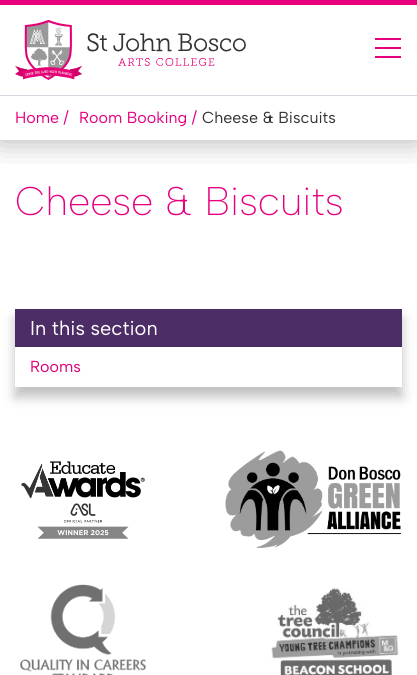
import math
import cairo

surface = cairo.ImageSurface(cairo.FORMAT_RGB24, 417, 675)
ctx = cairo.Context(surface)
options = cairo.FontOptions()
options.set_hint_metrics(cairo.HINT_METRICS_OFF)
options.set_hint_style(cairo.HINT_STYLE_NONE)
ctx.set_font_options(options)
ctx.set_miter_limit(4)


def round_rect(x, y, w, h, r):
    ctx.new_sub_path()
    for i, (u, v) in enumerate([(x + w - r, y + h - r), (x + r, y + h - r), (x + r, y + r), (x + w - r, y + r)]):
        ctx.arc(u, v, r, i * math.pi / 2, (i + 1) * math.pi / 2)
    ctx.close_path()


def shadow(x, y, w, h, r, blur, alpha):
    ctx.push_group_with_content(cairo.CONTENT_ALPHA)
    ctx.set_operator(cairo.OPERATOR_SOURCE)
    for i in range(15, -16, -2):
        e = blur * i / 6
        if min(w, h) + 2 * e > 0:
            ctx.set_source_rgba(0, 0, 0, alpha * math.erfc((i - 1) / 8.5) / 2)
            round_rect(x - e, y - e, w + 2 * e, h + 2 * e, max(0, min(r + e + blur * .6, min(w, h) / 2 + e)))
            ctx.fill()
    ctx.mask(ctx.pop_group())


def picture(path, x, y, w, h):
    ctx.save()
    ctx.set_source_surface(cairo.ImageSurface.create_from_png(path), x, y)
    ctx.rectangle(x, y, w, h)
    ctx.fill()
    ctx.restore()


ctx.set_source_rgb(1, 1, 1)
ctx.paint()
ctx.save()
ctx.rectangle(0, 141, 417, 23)
ctx.clip()
ctx.set_source_rgb(0, 0, 0)
shadow(0, 0, 417, 141, 0, 15, 0.3)
ctx.restore()
ctx.set_source_rgb(0.902, 0, 0.494)
ctx.rectangle(0, 0, 417, 5)
ctx.fill()
picture("img1.png", 15, 20, 231, 60)
ctx.rectangle(375, 38, 26, 2)
ctx.fill()
ctx.rectangle(375, 56, 26, 2)
ctx.fill()
ctx.rectangle(375, 47, 26, 2)
ctx.fill()
ctx.set_source_rgb(0.847, 0.839, 0.875)
ctx.rectangle(0, 95, 417, 1)
ctx.fill()
ctx.rectangle(0, 140, 417, 1)
ctx.fill()
ctx.select_font_face("Albert Sans")
ctx.set_font_size(16)
ctx.set_source_rgb(0.902, 0, 0.494)
ctx.move_to(15, 123)
ctx.show_text("Home /")
ctx.move_to(79, 123)
ctx.show_text("Room Booking /")
ctx.set_source_rgb(0.2, 0.2, 0.2)
ctx.move_to(202, 123)
ctx.show_text("Cheese & Biscuits")
ctx.select_font_face("Albert Sans ExtraLight")
ctx.set_font_size(40)
ctx.set_source_rgb(0.902, 0, 0.494)
ctx.move_to(15, 215)
ctx.show_text("Cheese & Biscuits")
ctx.save()
ctx.set_fill_rule(cairo.FILL_RULE_EVEN_ODD)
ctx.new_path()
ctx.move_to(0, 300)
ctx.line_to(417, 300)
ctx.line_to(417, 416)
ctx.line_to(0, 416)
ctx.close_path()
ctx.move_to(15, 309)
ctx.line_to(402, 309)
ctx.line_to(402, 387)
ctx.line_to(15, 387)
ctx.close_path()
ctx.clip()
ctx.set_source_rgb(0, 0, 0)
shadow(15, 319, 387, 78, 0, 6, 0.25)
ctx.restore()
ctx.set_source_rgb(0.302, 0.176, 0.4)
ctx.rectangle(15, 309, 387, 38)
ctx.fill()
ctx.select_font_face("Albert Sans")
ctx.set_font_size(20)
ctx.set_source_rgb(1, 1, 1)
ctx.move_to(30, 335)
ctx.show_text("In this section")
ctx.set_font_size(16)
ctx.set_source_rgb(0.859, 0, 0.471)
ctx.move_to(30, 372)
ctx.show_text("Rooms")
picture("img2.png", 21, 461, 124, 78)
picture("img3.png", 225, 450, 177, 98)
picture("img4.png", 20, 584, 126, 91)
picture("img5.png", 271, 588, 128, 87)
surface.write_to_png("page.png")
